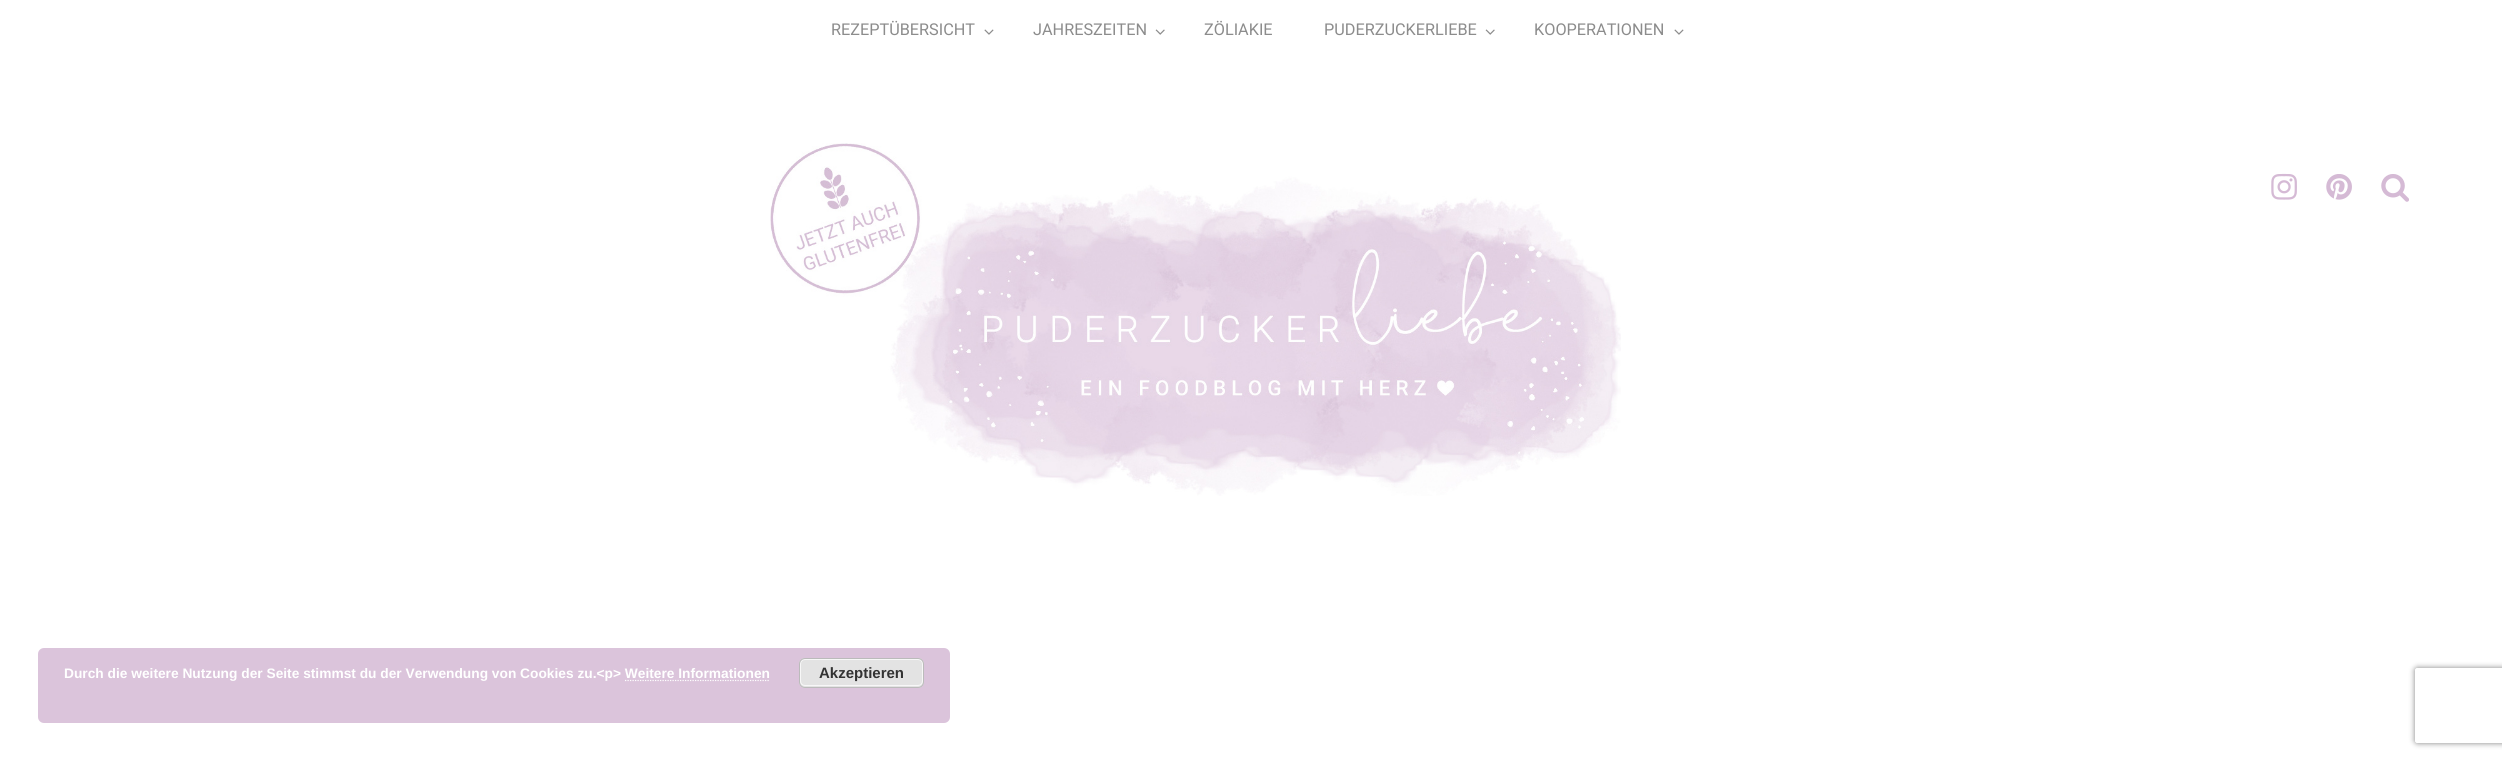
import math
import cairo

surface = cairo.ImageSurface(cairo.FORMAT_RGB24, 2502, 760)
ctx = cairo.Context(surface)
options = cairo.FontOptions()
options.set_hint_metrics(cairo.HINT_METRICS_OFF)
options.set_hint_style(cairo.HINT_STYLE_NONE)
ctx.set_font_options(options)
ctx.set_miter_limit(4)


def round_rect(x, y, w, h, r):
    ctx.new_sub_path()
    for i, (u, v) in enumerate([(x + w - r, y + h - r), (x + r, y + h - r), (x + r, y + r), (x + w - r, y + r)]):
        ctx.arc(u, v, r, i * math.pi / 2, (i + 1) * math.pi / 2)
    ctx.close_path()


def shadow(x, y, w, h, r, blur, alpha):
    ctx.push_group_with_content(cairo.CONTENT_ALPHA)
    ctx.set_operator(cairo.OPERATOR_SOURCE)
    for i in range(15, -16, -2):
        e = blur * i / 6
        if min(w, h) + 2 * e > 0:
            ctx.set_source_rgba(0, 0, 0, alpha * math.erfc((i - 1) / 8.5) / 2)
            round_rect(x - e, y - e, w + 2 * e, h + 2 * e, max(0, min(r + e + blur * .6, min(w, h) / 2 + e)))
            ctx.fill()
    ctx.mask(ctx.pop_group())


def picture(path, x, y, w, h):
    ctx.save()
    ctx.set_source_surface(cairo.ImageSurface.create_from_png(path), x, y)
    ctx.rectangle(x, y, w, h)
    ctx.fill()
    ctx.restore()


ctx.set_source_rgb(1, 1, 1)
ctx.paint()
ctx.select_font_face("Roboto")
ctx.set_font_size(16.25)
ctx.set_source_rgb(0.549, 0.549, 0.549)
ctx.move_to(831, 35)
ctx.show_text("REZEPTÜBERSICHT")
picture("img1.png", 984, 29, 10, 6)
ctx.move_to(1033, 35)
ctx.show_text("JAHRESZEITEN")
picture("img2.png", 1155, 29, 10, 6)
ctx.move_to(1204, 35)
ctx.show_text("ZÖLIAKIE")
ctx.move_to(1324, 35)
ctx.show_text("PUDERZUCKERLIEBE")
picture("img2.png", 1485, 29, 10, 6)
ctx.move_to(1534, 35)
ctx.show_text("KOOPERATIONEN")
picture("img1.png", 1674, 29, 10, 6)
picture("img3.png", 770, 143, 851, 353)
picture("img4.png", 2271, 173, 26, 27)
picture("img5.png", 2326, 174, 26, 26)
picture("img6.png", 2381, 174, 28, 28)
ctx.set_source_rgb(0.859, 0.769, 0.859)
round_rect(38, 648, 912, 75, 6)
ctx.fill()
ctx.select_font_face("Liberation Sans", cairo.FONT_SLANT_NORMAL, cairo.FONT_WEIGHT_BOLD)
ctx.set_font_size(13.75)
ctx.set_source_rgb(1, 1, 1)
ctx.move_to(64, 678)
ctx.show_text("Durch die weitere Nutzung der Seite stimmst du der Verwendung von Cookies zu.<p> Weitere Informationen")
ctx.set_source_rgb(0.89, 0.89, 0.89)
round_rect(799, 658, 125, 30, 6)
ctx.fill()
round_rect(800.5, 659.5, 122, 26, 4.5)
ctx.set_source_rgb(0.965, 0.965, 0.965)
ctx.set_line_width(1)
ctx.stroke()
round_rect(799.5, 658.5, 124, 29, 5.5)
ctx.set_source_rgb(0.733, 0.733, 0.733)
ctx.stroke()
ctx.set_font_size(15)
ctx.set_source_rgb(0.2, 0.2, 0.2)
ctx.move_to(819, 678)
ctx.show_text("Akzeptieren")
ctx.new_path()
ctx.move_to(625, 680.5)
ctx.line_to(770, 680.5)
ctx.set_source_rgb(1, 1, 1)
ctx.set_line_width(1.2)
ctx.set_dash([1.25, 1.25])
ctx.stroke()
ctx.save()
ctx.set_fill_rule(cairo.FILL_RULE_EVEN_ODD)
ctx.new_path()
ctx.move_to(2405, 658)
ctx.line_to(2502, 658)
ctx.line_to(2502, 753)
ctx.line_to(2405, 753)
ctx.close_path()
ctx.move_to(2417.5, 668)
ctx.line_to(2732.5, 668)
ctx.curve_to(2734, 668, 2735, 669, 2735, 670.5)
ctx.line_to(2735, 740.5)
ctx.curve_to(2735, 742, 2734, 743, 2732.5, 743)
ctx.line_to(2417.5, 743)
ctx.curve_to(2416, 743, 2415, 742, 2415, 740.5)
ctx.line_to(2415, 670.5)
ctx.curve_to(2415, 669, 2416, 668, 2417.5, 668)
ctx.close_path()
ctx.clip()
ctx.set_source_rgb(0.502, 0.502, 0.502)
shadow(2415, 668, 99, 75, 2.5, 3, 1)
ctx.restore()
surface.write_to_png("page.png")
